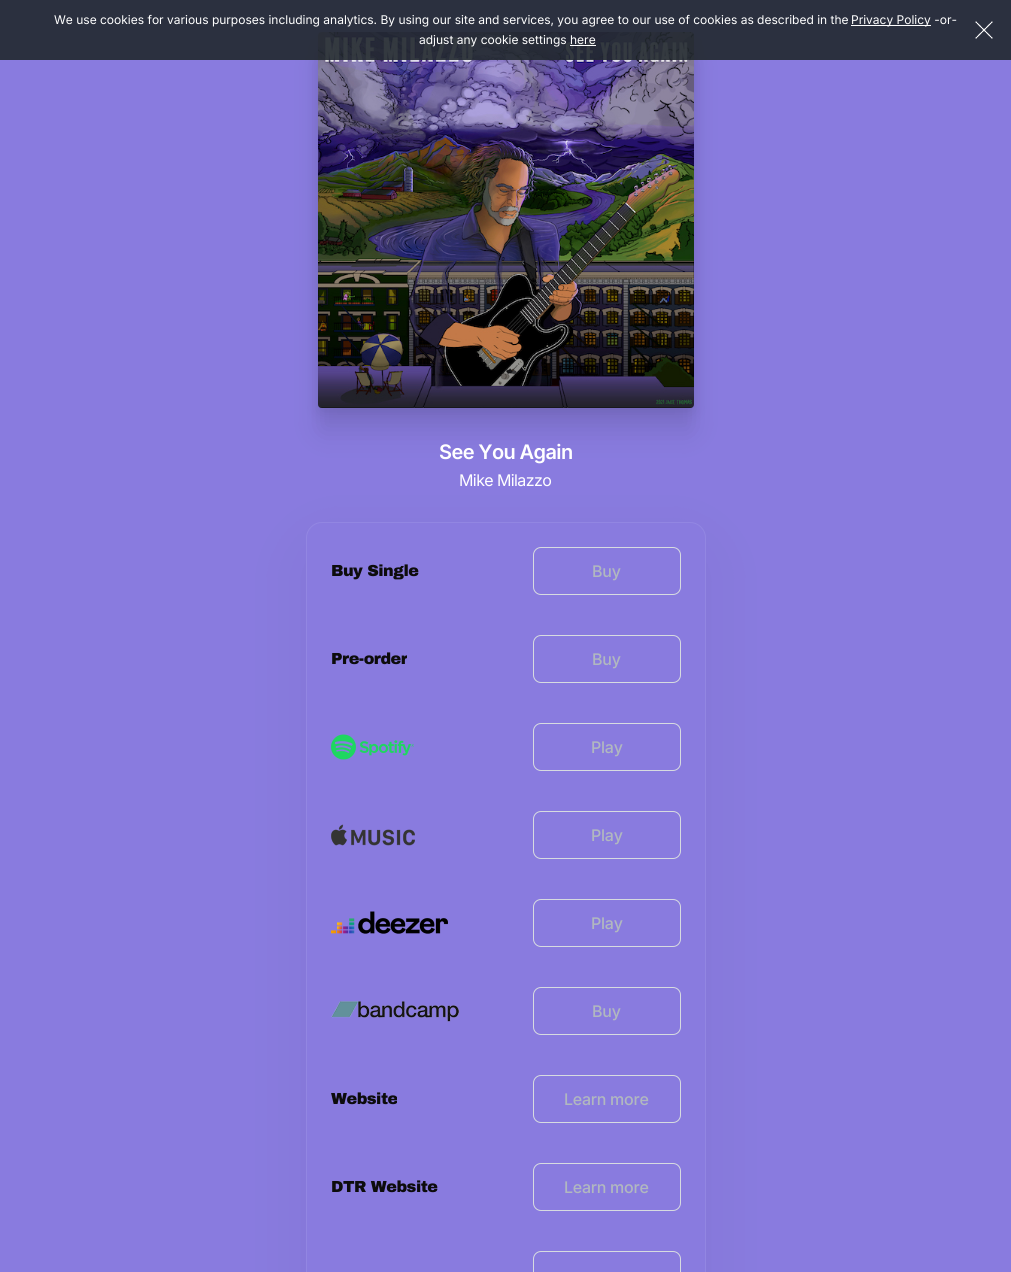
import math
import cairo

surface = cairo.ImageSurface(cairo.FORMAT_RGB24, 1011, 1272)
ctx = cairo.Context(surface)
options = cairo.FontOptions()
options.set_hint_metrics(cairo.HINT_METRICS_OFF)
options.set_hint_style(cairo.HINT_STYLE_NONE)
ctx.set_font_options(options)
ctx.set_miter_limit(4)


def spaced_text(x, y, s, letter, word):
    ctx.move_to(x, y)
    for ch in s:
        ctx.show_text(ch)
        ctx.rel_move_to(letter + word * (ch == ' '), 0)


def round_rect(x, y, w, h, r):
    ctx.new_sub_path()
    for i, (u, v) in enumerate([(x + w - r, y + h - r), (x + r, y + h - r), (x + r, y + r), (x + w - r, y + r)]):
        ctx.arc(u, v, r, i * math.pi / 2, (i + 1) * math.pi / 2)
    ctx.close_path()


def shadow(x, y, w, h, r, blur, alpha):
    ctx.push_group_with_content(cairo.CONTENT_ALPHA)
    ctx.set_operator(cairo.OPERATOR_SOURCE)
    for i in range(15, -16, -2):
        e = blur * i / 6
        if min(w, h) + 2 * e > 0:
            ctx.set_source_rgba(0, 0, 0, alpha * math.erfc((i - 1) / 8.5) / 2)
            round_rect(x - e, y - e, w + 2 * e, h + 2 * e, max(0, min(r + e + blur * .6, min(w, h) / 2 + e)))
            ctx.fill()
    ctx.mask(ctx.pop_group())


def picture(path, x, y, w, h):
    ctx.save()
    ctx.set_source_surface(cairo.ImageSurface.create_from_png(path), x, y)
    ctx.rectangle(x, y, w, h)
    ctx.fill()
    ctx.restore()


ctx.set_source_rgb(0.537, 0.482, 0.875)
ctx.paint()
ctx.set_source_rgb(0, 0, 0)
shadow(318, 38, 376, 376, 4, 7, 0.1)
shadow(318, 58, 376, 376, 4, 13, 0.09)
picture("img2.png", 318, 32, 376, 376)
ctx.set_source_rgba(0.133, 0.157, 0.18, 0.9)
ctx.rectangle(0, 0, 1011, 60)
ctx.fill()
ctx.select_font_face("Inter")
ctx.set_font_size(12)
ctx.set_source_rgb(1, 1, 1)
ctx.move_to(54, 24)
ctx.show_text("We use cookies for various purposes including analytics. By using our site and services, you agree to our use of cookies as described in the")
ctx.rectangle(851, 25, 80, 1)
ctx.fill()
ctx.move_to(851, 24)
ctx.show_text("Privacy Policy -or-")
ctx.move_to(419, 44)
ctx.show_text("adjust any cookie settings here")
ctx.rectangle(570, 45, 26, 1)
ctx.fill()
picture("img1.png", 975, 21, 18, 18)
ctx.select_font_face("Inter SemiBold")
ctx.set_font_size(20)
spaced_text(439, 459, "See You Again", -0.6, 0)
ctx.select_font_face("Inter")
ctx.set_font_size(16)
spaced_text(459, 486, "Mike Milazzo", -0.6, 0)
ctx.set_source_rgb(0, 0, 0)
shadow(306, 546, 400, 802, 16, 34, 0.05)
ctx.set_source_rgb(0.537, 0.482, 0.875)
round_rect(306.5, 522.5, 399, 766, 15.5)
ctx.fill_preserve()
ctx.set_source_rgb(0.573, 0.525, 0.886)
ctx.set_line_width(1)
ctx.stroke()
ctx.select_font_face("Archivo Black Black")
ctx.set_source_rgb(0.051, 0.047, 0.047)
spaced_text(331, 576, "Buy Single", -0.5, 0)
round_rect(533.5, 547.5, 147, 47, 7.5)
ctx.set_source_rgb(0.843, 0.859, 0.878)
ctx.stroke()
ctx.select_font_face("Inter Medium")
ctx.set_source_rgb(0.694, 0.722, 0.749)
spaced_text(592, 577, "Buy", -0.25, 0)
ctx.save()
ctx.rectangle(331, 650, 76, 18)
ctx.clip()
ctx.select_font_face("Archivo Black Black")
ctx.set_source_rgb(0.051, 0.047, 0.047)
spaced_text(331, 664, "Pre-order", -0.5, 0)
ctx.restore()
round_rect(533.5, 635.5, 147, 47, 7.5)
ctx.set_source_rgb(0.843, 0.859, 0.878)
ctx.stroke()
ctx.set_source_rgb(0.694, 0.722, 0.749)
spaced_text(592, 665, "Buy", -0.25, 0)
picture("img3.png", 331, 734, 83, 26)
round_rect(533.5, 723.5, 147, 47, 7.5)
ctx.set_source_rgb(0.843, 0.859, 0.878)
ctx.stroke()
ctx.set_source_rgb(0.694, 0.722, 0.749)
spaced_text(591, 753, "Play", -0.25, 0)
picture("img4.png", 331, 824, 84, 22)
round_rect(533.5, 811.5, 147, 47, 7.5)
ctx.set_source_rgb(0.843, 0.859, 0.878)
ctx.stroke()
ctx.set_source_rgb(0.694, 0.722, 0.749)
spaced_text(591, 841, "Play", -0.25, 0)
picture("img5.png", 331, 911, 117, 23)
round_rect(533.5, 899.5, 147, 47, 7.5)
ctx.set_source_rgb(0.843, 0.859, 0.878)
ctx.stroke()
ctx.set_source_rgb(0.694, 0.722, 0.749)
spaced_text(591, 929, "Play", -0.25, 0)
picture("img6.png", 331, 1001, 128, 21)
round_rect(533.5, 987.5, 147, 47, 7.5)
ctx.set_source_rgb(0.843, 0.859, 0.878)
ctx.stroke()
ctx.set_source_rgb(0.694, 0.722, 0.749)
spaced_text(592, 1017, "Buy", -0.25, 0)
ctx.save()
ctx.rectangle(331, 1090, 66, 18)
ctx.clip()
ctx.select_font_face("Archivo Black Black")
ctx.set_source_rgb(0.051, 0.047, 0.047)
spaced_text(331, 1104, "Website", -0.5, 0)
ctx.restore()
round_rect(533.5, 1075.5, 147, 47, 7.5)
ctx.set_source_rgb(0.843, 0.859, 0.878)
ctx.stroke()
ctx.set_source_rgb(0.694, 0.722, 0.749)
spaced_text(564, 1105, "Learn more", -0.25, 0)
ctx.select_font_face("Archivo Black Black")
ctx.set_source_rgb(0.051, 0.047, 0.047)
spaced_text(331, 1192, "DTR Website", -0.5, 0)
round_rect(533.5, 1163.5, 147, 47, 7.5)
ctx.set_source_rgb(0.843, 0.859, 0.878)
ctx.stroke()
ctx.select_font_face("Inter Medium")
ctx.set_source_rgb(0.694, 0.722, 0.749)
spaced_text(564, 1193, "Learn more", -0.25, 0)
round_rect(533.5, 1251.5, 147, 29, 7.5)
ctx.set_source_rgb(0.843, 0.859, 0.878)
ctx.stroke()
surface.write_to_png("page.png")
